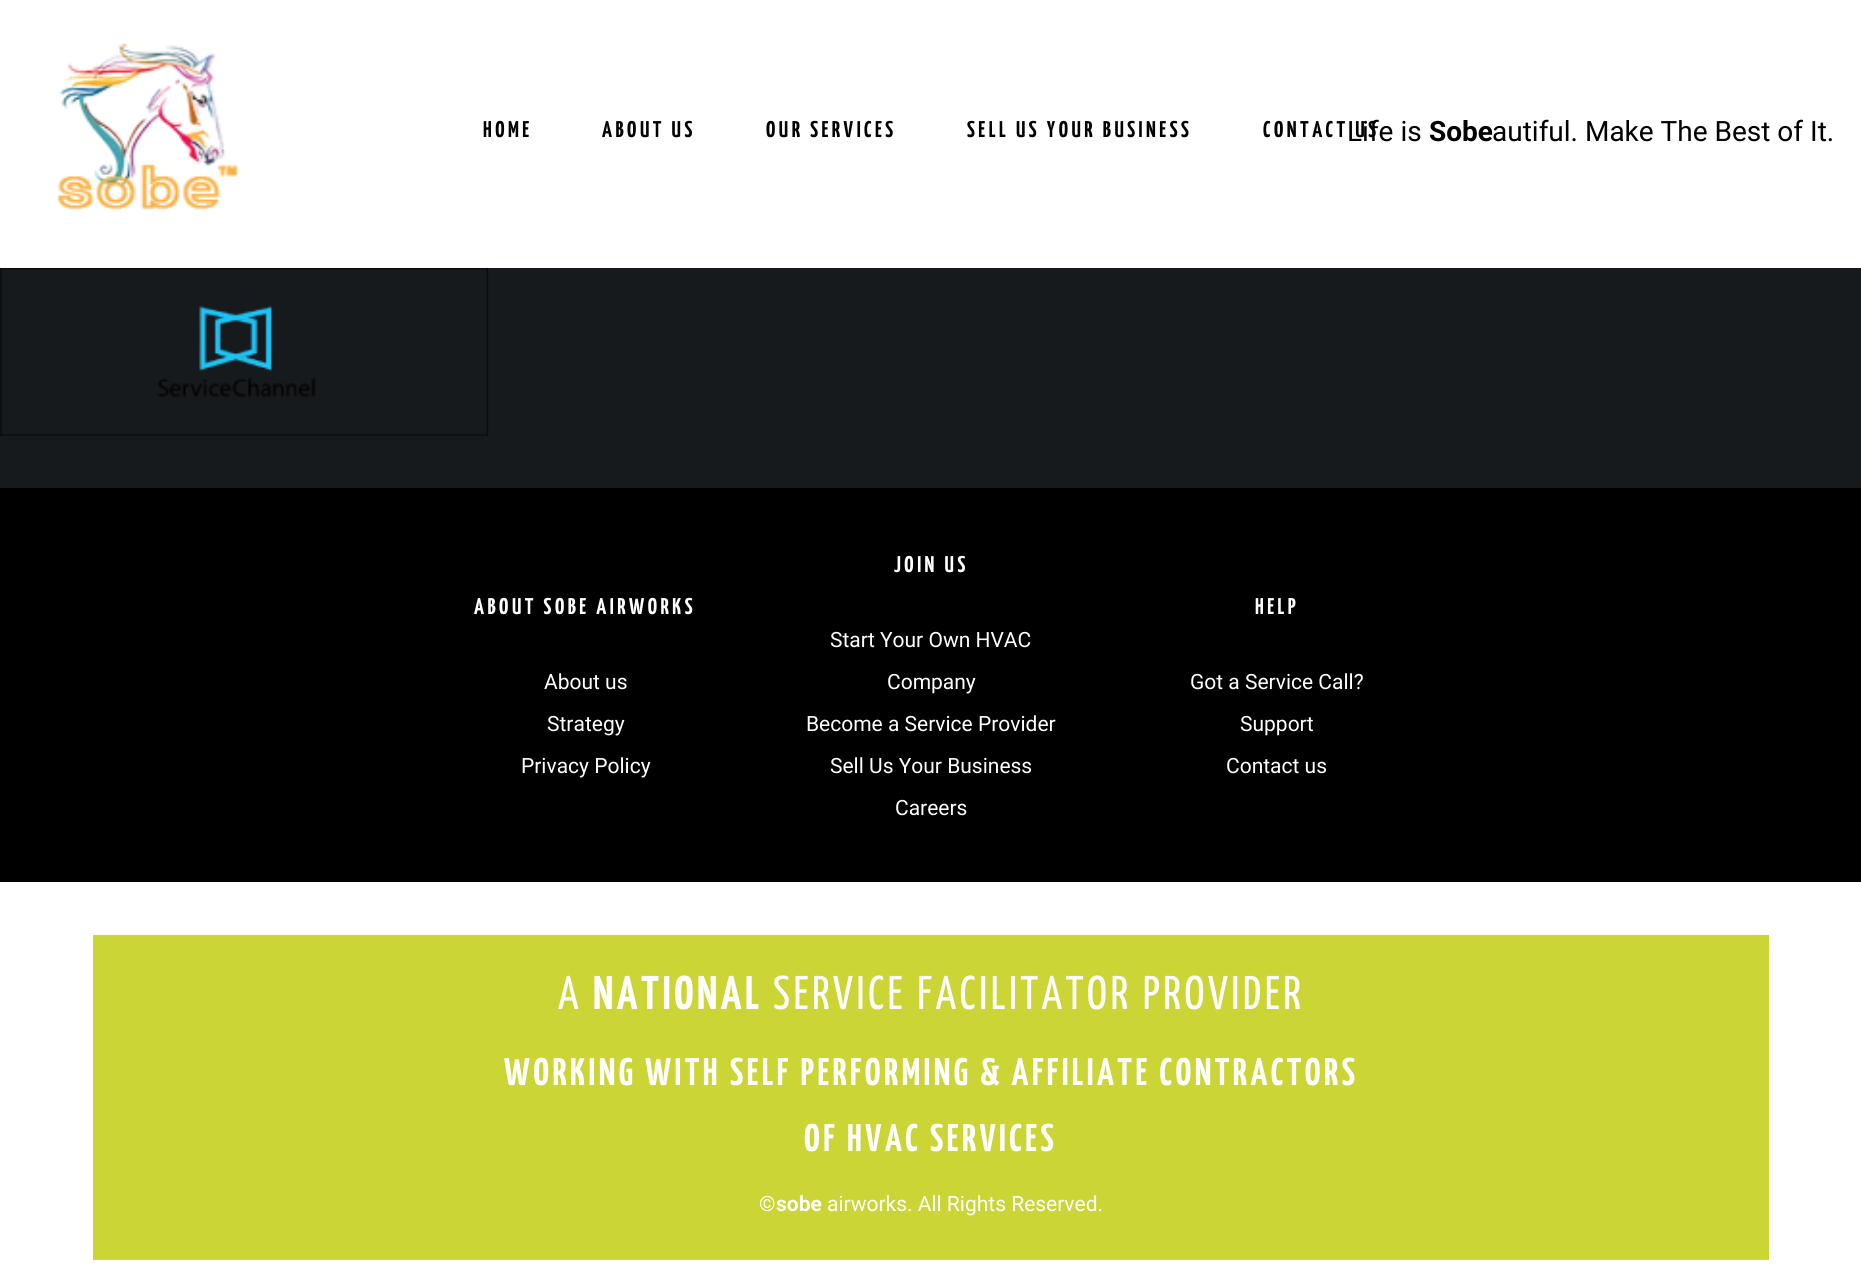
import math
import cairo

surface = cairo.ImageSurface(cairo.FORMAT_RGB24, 1861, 1267)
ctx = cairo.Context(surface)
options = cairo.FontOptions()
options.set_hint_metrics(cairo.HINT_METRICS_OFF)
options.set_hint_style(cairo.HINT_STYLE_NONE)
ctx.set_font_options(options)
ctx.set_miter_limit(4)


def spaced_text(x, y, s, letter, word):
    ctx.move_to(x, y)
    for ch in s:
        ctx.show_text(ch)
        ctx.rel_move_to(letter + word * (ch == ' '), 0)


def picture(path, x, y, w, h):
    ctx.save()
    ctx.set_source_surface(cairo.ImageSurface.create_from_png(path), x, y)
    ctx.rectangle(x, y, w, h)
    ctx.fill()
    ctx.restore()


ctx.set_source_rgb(0.09, 0.102, 0.114)
ctx.paint()
ctx.set_source_rgb(1, 1, 1)
ctx.rectangle(0, 0, 1861, 268)
ctx.fill()
picture("img1.png", 57, 43, 183, 167)
ctx.select_font_face("Yanone Kaffeesatz", cairo.FONT_SLANT_NORMAL, cairo.FONT_WEIGHT_BOLD)
ctx.set_font_size(22.75)
ctx.set_source_rgb(0, 0, 0)
spaced_text(483, 137, "HOME", 3.5, 0)
spaced_text(602, 137, "ABOUT US", 3.5, 0)
spaced_text(766, 137, "OUR SERVICES", 3.5, 0)
spaced_text(967, 137, "SELL US YOUR BUSINESS", 3.5, 0)
spaced_text(1263, 137, "CONTACT US", 3.5, 0)
ctx.select_font_face("Roboto")
ctx.set_font_size(28)
ctx.move_to(1347, 141)
ctx.show_text("Life is")
ctx.select_font_face("Roboto", cairo.FONT_SLANT_NORMAL, cairo.FONT_WEIGHT_BOLD)
ctx.move_to(1429, 141)
ctx.show_text("Sobe")
ctx.select_font_face("Roboto")
ctx.move_to(1492, 141)
ctx.show_text("autiful. Make The Best of It.")
picture("img2.png", 0, 268, 489, 168)
ctx.rectangle(0, 488, 1861, 394)
ctx.fill()
ctx.select_font_face("Yanone Kaffeesatz", cairo.FONT_SLANT_NORMAL, cairo.FONT_WEIGHT_BOLD)
ctx.set_font_size(22.75)
ctx.set_source_rgb(1, 1, 1)
spaced_text(474, 614, "ABOUT SOBE AIRWORKS", 3.5, 0)
ctx.select_font_face("Roboto")
ctx.set_font_size(21)
ctx.move_to(544, 689)
ctx.show_text("About us")
ctx.move_to(547, 731)
ctx.show_text("Strategy")
ctx.move_to(521, 773)
ctx.show_text("Privacy Policy")
ctx.select_font_face("Yanone Kaffeesatz", cairo.FONT_SLANT_NORMAL, cairo.FONT_WEIGHT_BOLD)
ctx.set_font_size(22.75)
spaced_text(894, 572, "JOIN US", 3.5, 0)
ctx.select_font_face("Roboto")
ctx.set_font_size(21)
ctx.move_to(830, 647)
ctx.show_text("Start Your Own HVAC")
ctx.move_to(887, 689)
ctx.show_text("Company")
ctx.move_to(806, 731)
ctx.show_text("Become a Service Provider")
ctx.move_to(830, 773)
ctx.show_text("Sell Us Your Business")
ctx.move_to(895, 815)
ctx.show_text("Careers")
ctx.select_font_face("Yanone Kaffeesatz", cairo.FONT_SLANT_NORMAL, cairo.FONT_WEIGHT_BOLD)
ctx.set_font_size(22.75)
spaced_text(1255, 614, "HELP", 3.5, 0)
ctx.select_font_face("Roboto")
ctx.set_font_size(21)
ctx.move_to(1190, 689)
ctx.show_text("Got a Service Call?")
ctx.move_to(1240, 731)
ctx.show_text("Support")
ctx.move_to(1226, 773)
ctx.show_text("Contact us")
ctx.rectangle(0, 882, 1861, 385)
ctx.fill()
ctx.set_source_rgb(0.796, 0.835, 0.208)
ctx.rectangle(93, 935, 1676, 325)
ctx.fill()
ctx.select_font_face("Yanone Kaffeesatz")
ctx.set_font_size(47.25)
ctx.set_source_rgb(1, 1, 1)
spaced_text(558, 1009, "A", 3.5, 0)
ctx.select_font_face("Yanone Kaffeesatz", cairo.FONT_SLANT_NORMAL, cairo.FONT_WEIGHT_BOLD)
spaced_text(593, 1009, "NATIONAL", 3.5, 0)
ctx.select_font_face("Yanone Kaffeesatz")
spaced_text(773, 1009, "SERVICE FACILITATOR PROVIDER", 3.5, 0)
ctx.select_font_face("Yanone Kaffeesatz", cairo.FONT_SLANT_NORMAL, cairo.FONT_WEIGHT_BOLD)
ctx.set_font_size(38.5)
spaced_text(504, 1085, "WORKING WITH SELF PERFORMING & AFFILIATE CONTRACTORS", 3.5, 0)
spaced_text(804, 1151, "OF HVAC SERVICES", 3.5, 0)
ctx.select_font_face("Roboto")
ctx.set_font_size(21)
ctx.move_to(759, 1211)
ctx.show_text("©")
ctx.select_font_face("Roboto", cairo.FONT_SLANT_NORMAL, cairo.FONT_WEIGHT_BOLD)
ctx.move_to(776, 1211)
ctx.show_text("sobe")
ctx.select_font_face("Roboto")
ctx.move_to(827, 1211)
ctx.show_text("airworks. All Rights Reserved.")
surface.write_to_png("page.png")
